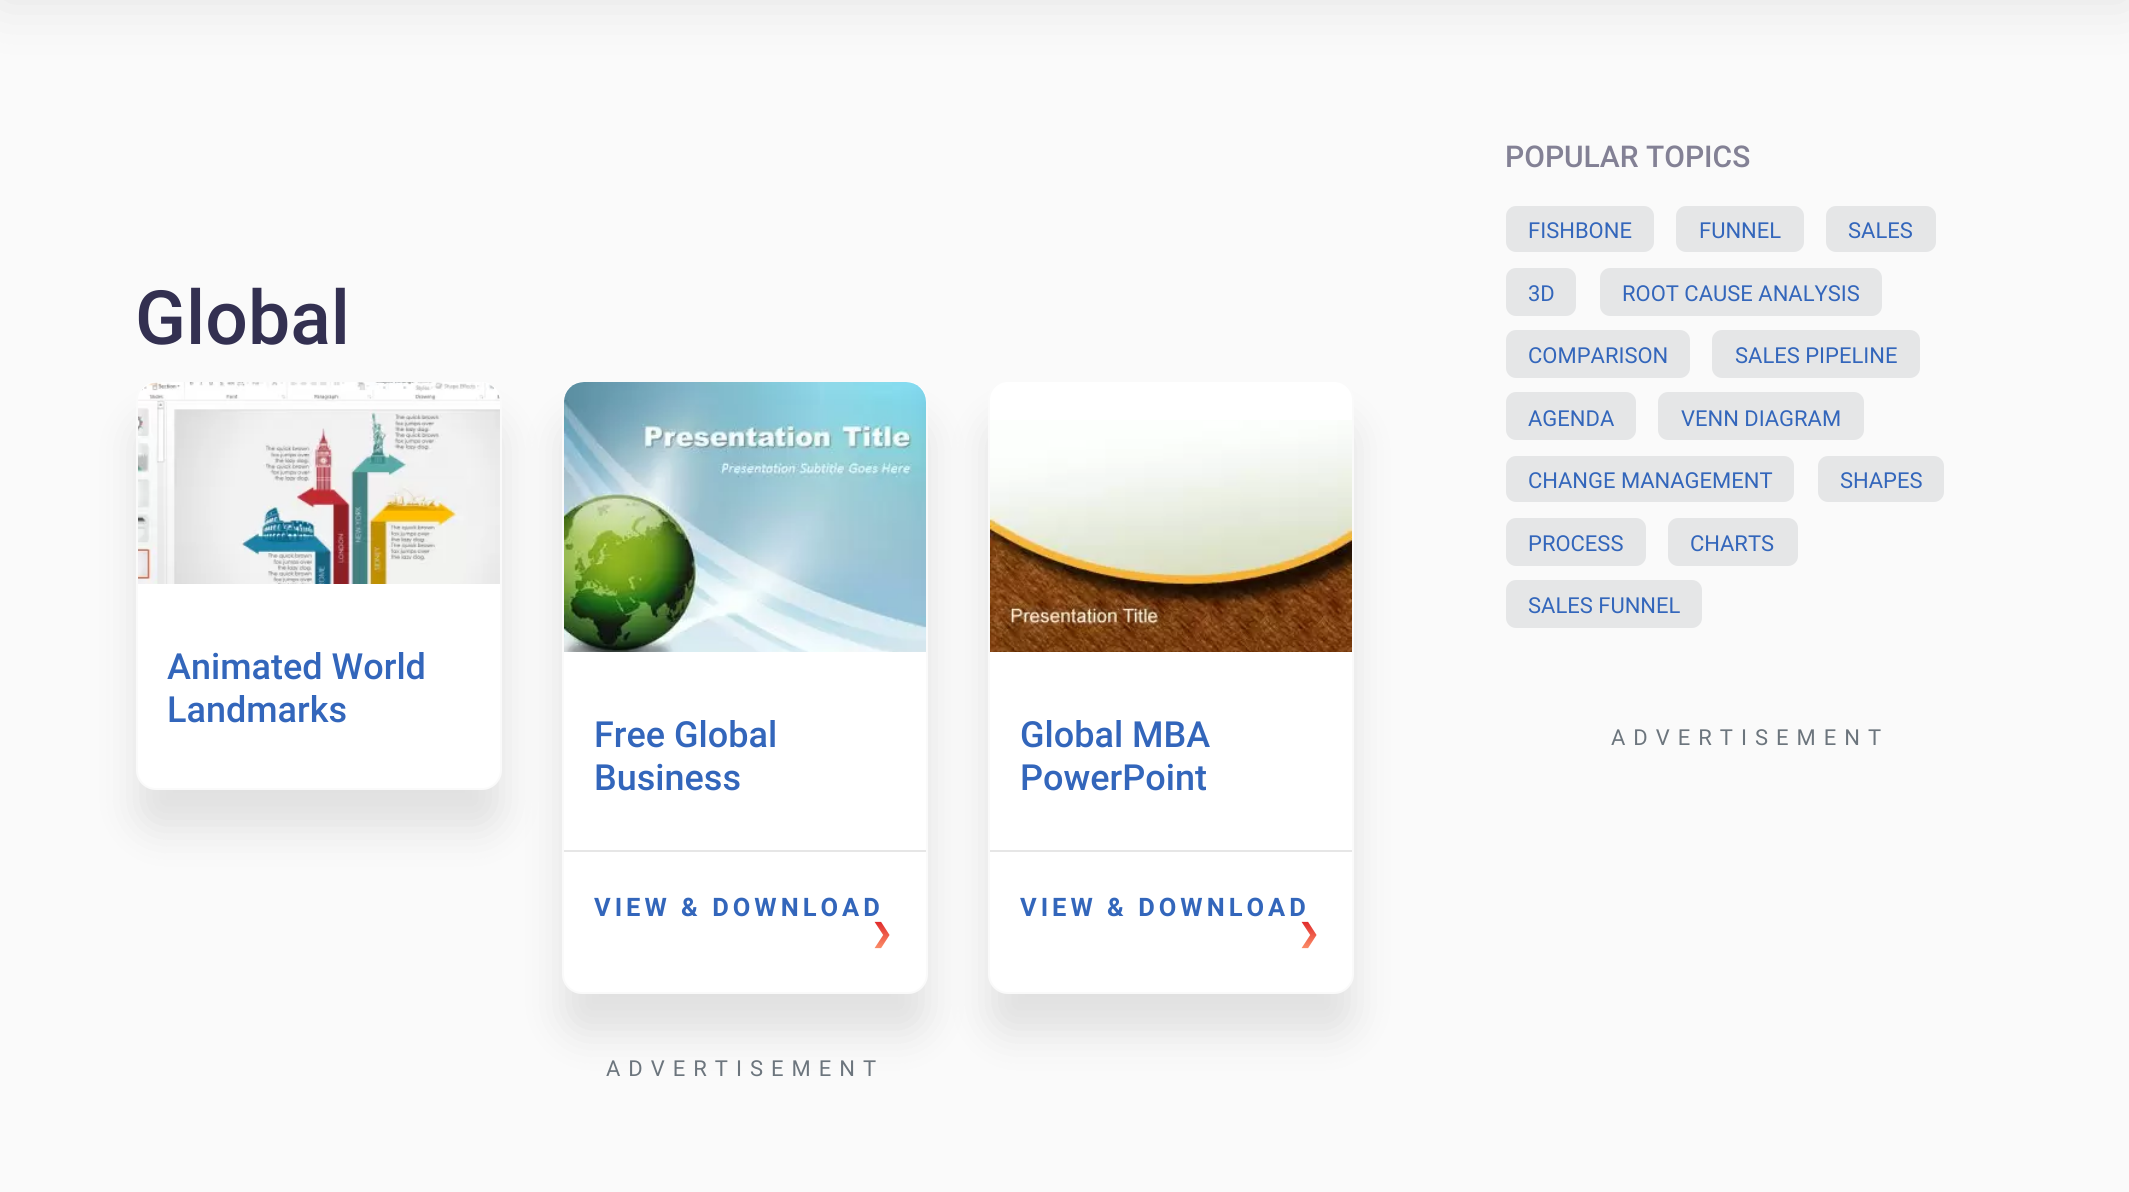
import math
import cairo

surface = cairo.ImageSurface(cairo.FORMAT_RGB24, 2129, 1192)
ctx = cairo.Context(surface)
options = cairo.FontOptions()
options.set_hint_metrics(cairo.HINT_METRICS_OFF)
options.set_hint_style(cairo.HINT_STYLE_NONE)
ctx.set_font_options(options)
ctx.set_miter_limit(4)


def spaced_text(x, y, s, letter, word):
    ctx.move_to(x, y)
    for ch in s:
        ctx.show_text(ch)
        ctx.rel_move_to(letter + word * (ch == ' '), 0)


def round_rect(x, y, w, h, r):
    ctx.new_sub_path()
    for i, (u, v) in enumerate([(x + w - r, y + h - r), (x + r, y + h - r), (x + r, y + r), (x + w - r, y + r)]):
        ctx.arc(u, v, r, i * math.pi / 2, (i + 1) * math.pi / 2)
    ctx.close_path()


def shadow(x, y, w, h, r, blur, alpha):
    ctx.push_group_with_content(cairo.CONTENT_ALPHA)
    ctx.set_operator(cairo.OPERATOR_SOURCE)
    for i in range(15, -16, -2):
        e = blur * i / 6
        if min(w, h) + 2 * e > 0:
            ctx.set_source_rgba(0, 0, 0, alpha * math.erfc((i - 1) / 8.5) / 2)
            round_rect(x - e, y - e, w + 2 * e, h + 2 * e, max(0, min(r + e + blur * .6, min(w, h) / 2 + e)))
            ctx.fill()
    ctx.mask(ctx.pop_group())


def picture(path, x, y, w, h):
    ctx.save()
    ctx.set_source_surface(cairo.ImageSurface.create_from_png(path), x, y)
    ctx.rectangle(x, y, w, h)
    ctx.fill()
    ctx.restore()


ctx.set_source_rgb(0.98, 0.98, 0.98)
ctx.paint()
ctx.set_source_rgb(0, 0, 0)
shadow(0, -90, 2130, 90, 0, 30, 0.1)
ctx.select_font_face("Roboto Medium")
ctx.set_font_size(75)
ctx.set_source_rgb(0.2, 0.188, 0.318)
ctx.move_to(135, 344)
ctx.show_text("Global")
ctx.set_source_rgb(0, 0, 0)
shadow(136, 420, 366, 410, 20, 20, 0.1)
ctx.set_source_rgb(1, 1, 1)
round_rect(137, 381, 364, 408, 19)
ctx.fill_preserve()
ctx.set_source_rgb(0.98, 0.98, 0.98)
ctx.stroke()
picture("img1.png", 138, 382, 362, 202)
ctx.set_font_size(36)
ctx.set_source_rgb(0.2, 0.4, 0.733)
ctx.move_to(167, 679)
ctx.show_text("Animated World")
ctx.move_to(167, 722)
ctx.show_text("Landmarks")
ctx.set_source_rgb(0, 0, 0)
shadow(562, 420, 366, 614, 20, 20, 0.1)
ctx.set_source_rgb(1, 1, 1)
round_rect(563, 381, 364, 612, 19)
ctx.fill_preserve()
ctx.set_source_rgb(0.98, 0.98, 0.98)
ctx.stroke()
picture("img2.png", 564, 382, 362, 270)
ctx.set_source_rgb(0.2, 0.4, 0.733)
ctx.move_to(594, 747)
ctx.show_text("Free Global")
ctx.move_to(594, 790)
ctx.show_text("Business")
ctx.set_source_rgb(0.902, 0.902, 0.902)
ctx.rectangle(564, 850, 362, 2)
ctx.fill()
ctx.select_font_face("Roboto", cairo.FONT_SLANT_NORMAL, cairo.FONT_WEIGHT_BOLD)
ctx.set_font_size(25.5)
ctx.set_source_rgb(0.2, 0.4, 0.733)
spaced_text(594, 916, "VIEW & DOWNLOAD", 4, 0)
ctx.select_font_face("DejaVu Sans", cairo.FONT_SLANT_NORMAL, cairo.FONT_WEIGHT_BOLD)
gradient = cairo.LinearGradient(884, 922, 884, 947)
gradient.add_color_stop_rgba(0, 0.882, 0.173, 0.173, 1)
gradient.add_color_stop_rgba(1, 0.98, 0.533, 0.396, 1)
ctx.set_source(gradient)
spaced_text(871, 942, "❯", 4, 0)
ctx.set_source_rgb(0, 0, 0)
shadow(988, 420, 366, 614, 20, 20, 0.1)
ctx.set_source_rgb(1, 1, 1)
round_rect(989, 381, 364, 612, 19)
ctx.fill_preserve()
ctx.set_source_rgb(0.98, 0.98, 0.98)
ctx.stroke()
picture("img3.png", 990, 420, 362, 232)
ctx.select_font_face("Roboto Medium")
ctx.set_font_size(36)
ctx.set_source_rgb(0.2, 0.4, 0.733)
ctx.move_to(1020, 747)
ctx.show_text("Global MBA")
ctx.move_to(1020, 790)
ctx.show_text("PowerPoint")
ctx.set_source_rgb(0.902, 0.902, 0.902)
ctx.rectangle(990, 850, 362, 2)
ctx.fill()
ctx.select_font_face("Roboto", cairo.FONT_SLANT_NORMAL, cairo.FONT_WEIGHT_BOLD)
ctx.set_font_size(25.5)
ctx.set_source_rgb(0.2, 0.4, 0.733)
spaced_text(1020, 916, "VIEW & DOWNLOAD", 4, 0)
ctx.select_font_face("DejaVu Sans", cairo.FONT_SLANT_NORMAL, cairo.FONT_WEIGHT_BOLD)
gradient = cairo.LinearGradient(1310, 922, 1310, 947)
gradient.add_color_stop_rgba(0, 0.882, 0.173, 0.173, 1)
gradient.add_color_stop_rgba(1, 0.98, 0.533, 0.396, 1)
ctx.set_source(gradient)
spaced_text(1298, 942, "❯", 4, 0)
ctx.select_font_face("Roboto")
ctx.set_font_size(22)
ctx.set_source_rgb(0.424, 0.459, 0.49)
spaced_text(606, 1076, "ADVERTISEMENT", 8, 0)
ctx.select_font_face("Roboto Medium")
ctx.set_font_size(30)
ctx.set_source_rgb(0.514, 0.506, 0.584)
ctx.move_to(1505, 167)
ctx.show_text("POPULAR TOPICS")
ctx.set_source_rgb(0.898, 0.902, 0.906)
round_rect(1506, 206, 148, 46, 10)
ctx.fill()
ctx.select_font_face("Roboto")
ctx.set_font_size(22)
ctx.set_source_rgb(0.2, 0.4, 0.733)
ctx.move_to(1528, 238)
ctx.show_text("FISHBONE")
ctx.set_source_rgb(0.898, 0.902, 0.906)
round_rect(1676, 206, 128, 46, 10)
ctx.fill()
ctx.set_source_rgb(0.2, 0.4, 0.733)
ctx.move_to(1699, 238)
ctx.show_text("FUNNEL")
ctx.set_source_rgb(0.898, 0.902, 0.906)
round_rect(1826, 206, 110, 46, 10)
ctx.fill()
ctx.set_source_rgb(0.2, 0.4, 0.733)
ctx.move_to(1848, 238)
ctx.show_text("SALES")
ctx.set_source_rgb(0.898, 0.902, 0.906)
round_rect(1506, 268, 70, 48, 10)
ctx.fill()
ctx.set_source_rgb(0.2, 0.4, 0.733)
ctx.move_to(1528, 301)
ctx.show_text("3D")
ctx.set_source_rgb(0.898, 0.902, 0.906)
round_rect(1600, 268, 282, 48, 10)
ctx.fill()
ctx.set_source_rgb(0.2, 0.4, 0.733)
ctx.move_to(1622, 301)
ctx.show_text("ROOT CAUSE ANALYSIS")
ctx.set_source_rgb(0.898, 0.902, 0.906)
round_rect(1506, 330, 184, 48, 10)
ctx.fill()
ctx.set_source_rgb(0.2, 0.4, 0.733)
ctx.move_to(1528, 363)
ctx.show_text("COMPARISON")
ctx.set_source_rgb(0.898, 0.902, 0.906)
round_rect(1712, 330, 208, 48, 10)
ctx.fill()
ctx.set_source_rgb(0.2, 0.4, 0.733)
ctx.move_to(1735, 363)
ctx.show_text("SALES PIPELINE")
ctx.set_source_rgb(0.898, 0.902, 0.906)
round_rect(1506, 392, 130, 48, 10)
ctx.fill()
ctx.set_source_rgb(0.2, 0.4, 0.733)
ctx.move_to(1528, 426)
ctx.show_text("AGENDA")
ctx.set_source_rgb(0.898, 0.902, 0.906)
round_rect(1658, 392, 206, 48, 10)
ctx.fill()
ctx.set_source_rgb(0.2, 0.4, 0.733)
ctx.move_to(1681, 426)
ctx.show_text("VENN DIAGRAM")
ctx.set_source_rgb(0.898, 0.902, 0.906)
round_rect(1506, 456, 288, 46, 10)
ctx.fill()
ctx.set_source_rgb(0.2, 0.4, 0.733)
ctx.move_to(1528, 488)
ctx.show_text("CHANGE MANAGEMENT")
ctx.set_source_rgb(0.898, 0.902, 0.906)
round_rect(1818, 456, 126, 46, 10)
ctx.fill()
ctx.set_source_rgb(0.2, 0.4, 0.733)
ctx.move_to(1840, 488)
ctx.show_text("SHAPES")
ctx.set_source_rgb(0.898, 0.902, 0.906)
round_rect(1506, 518, 140, 48, 10)
ctx.fill()
ctx.set_source_rgb(0.2, 0.4, 0.733)
ctx.move_to(1528, 551)
ctx.show_text("PROCESS")
ctx.set_source_rgb(0.898, 0.902, 0.906)
round_rect(1668, 518, 130, 48, 10)
ctx.fill()
ctx.set_source_rgb(0.2, 0.4, 0.733)
ctx.move_to(1690, 551)
ctx.show_text("CHARTS")
ctx.set_source_rgb(0.898, 0.902, 0.906)
round_rect(1506, 580, 196, 48, 10)
ctx.fill()
ctx.set_source_rgb(0.2, 0.4, 0.733)
ctx.move_to(1528, 613)
ctx.show_text("SALES FUNNEL")
ctx.set_source_rgb(0.424, 0.459, 0.49)
spaced_text(1611, 745, "ADVERTISEMENT", 8, 0)
surface.write_to_png("page.png")
